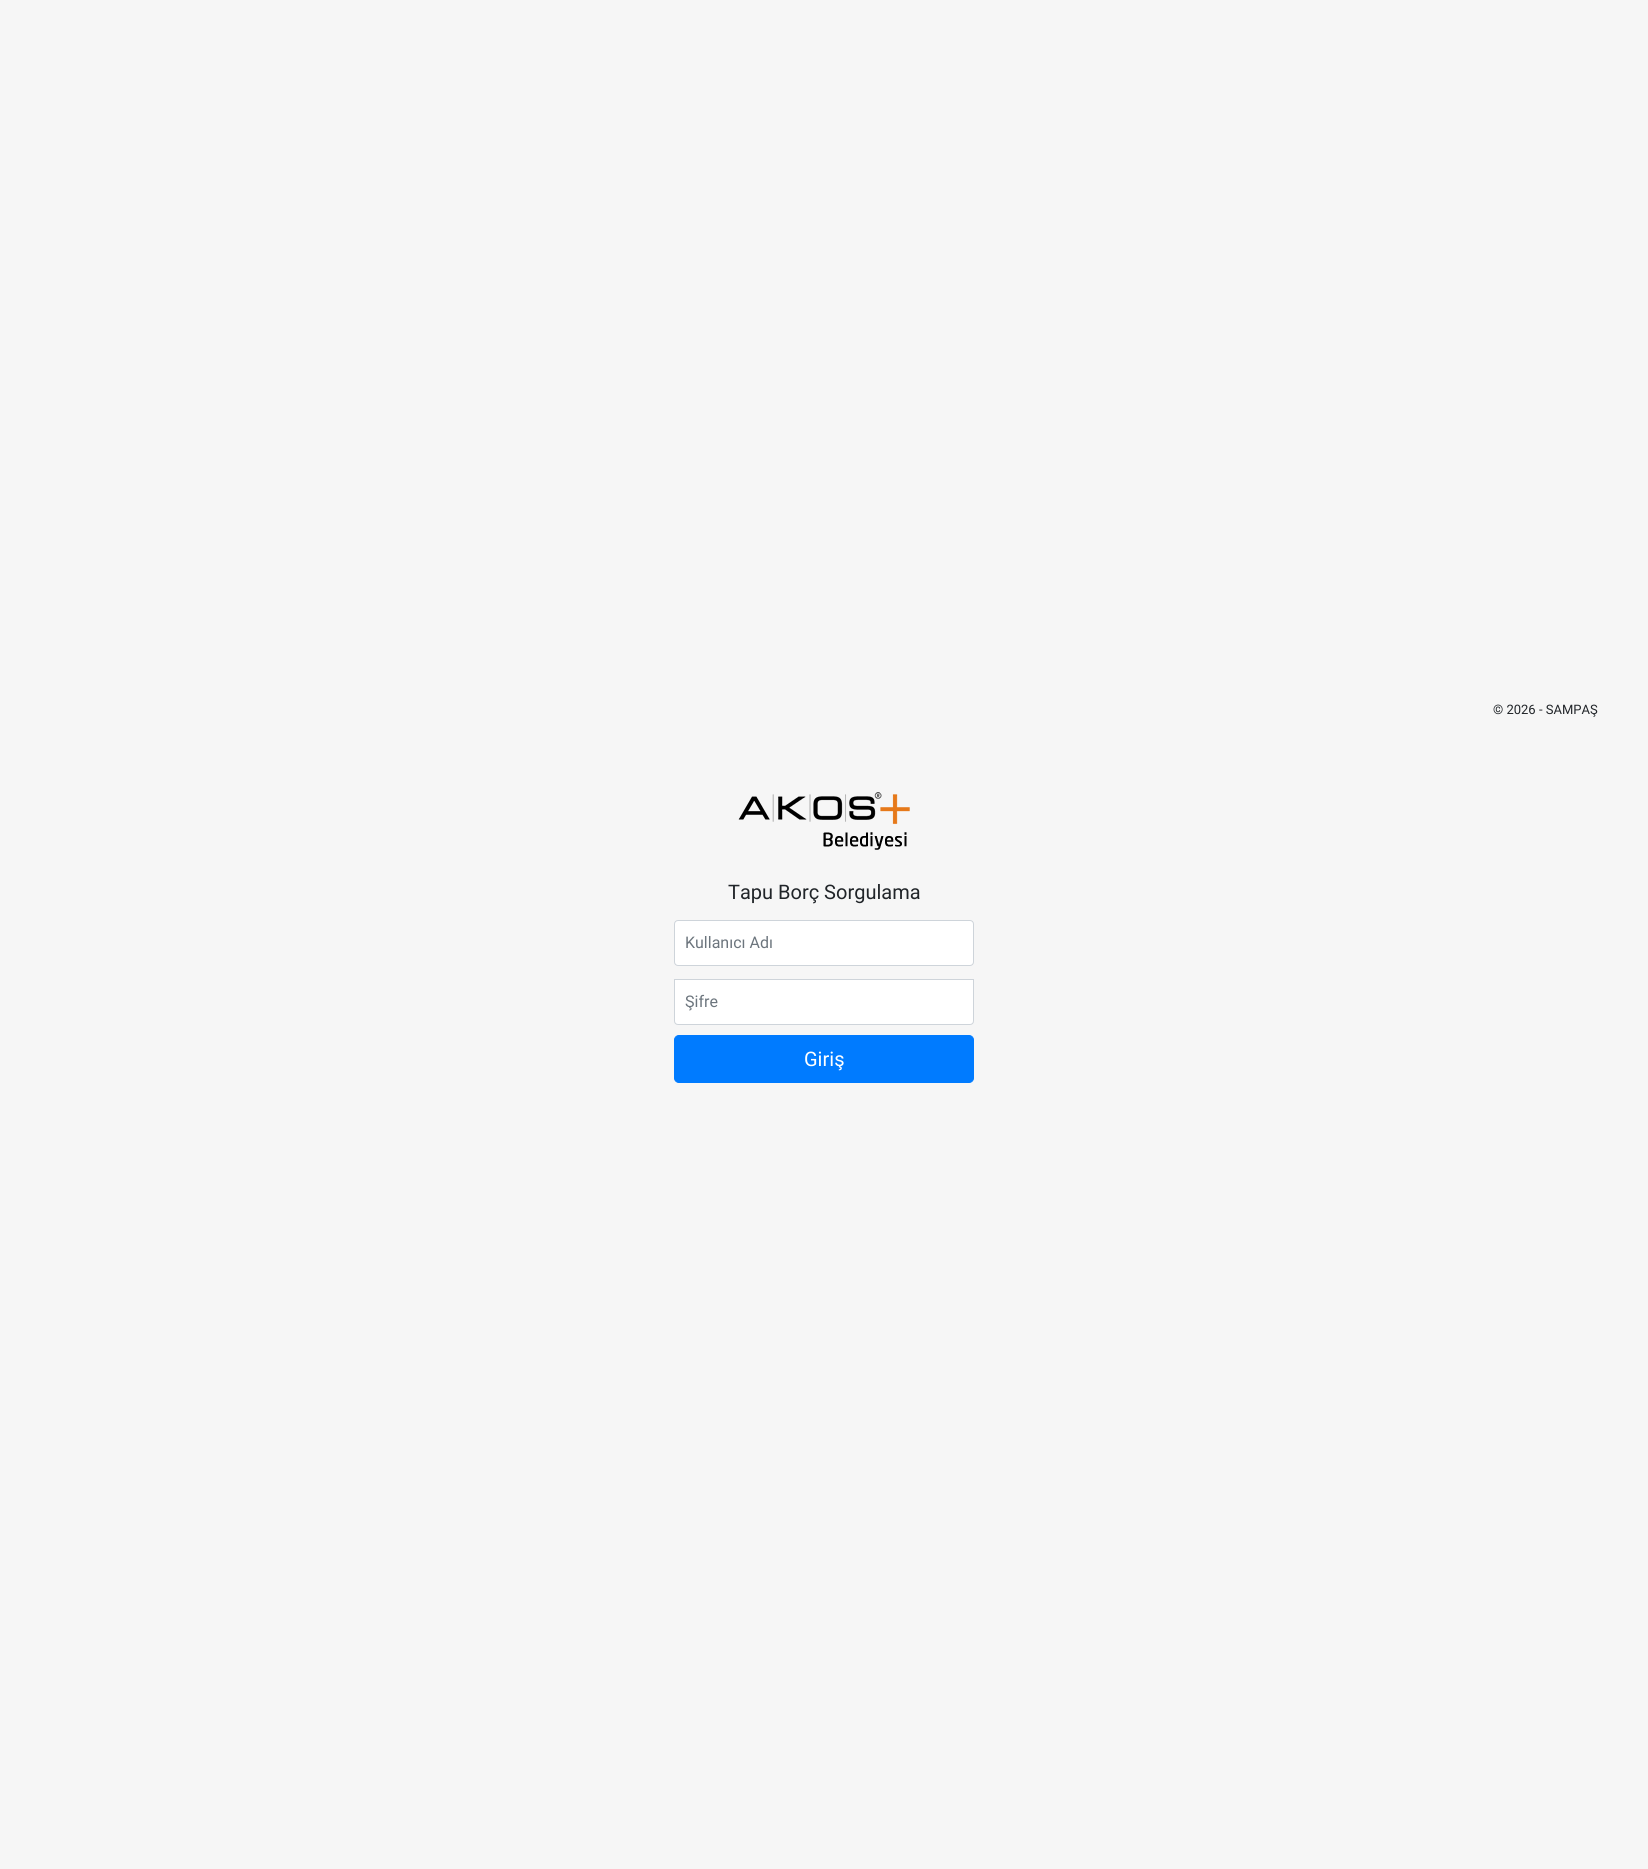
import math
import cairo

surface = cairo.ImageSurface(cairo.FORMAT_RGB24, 1648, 1869)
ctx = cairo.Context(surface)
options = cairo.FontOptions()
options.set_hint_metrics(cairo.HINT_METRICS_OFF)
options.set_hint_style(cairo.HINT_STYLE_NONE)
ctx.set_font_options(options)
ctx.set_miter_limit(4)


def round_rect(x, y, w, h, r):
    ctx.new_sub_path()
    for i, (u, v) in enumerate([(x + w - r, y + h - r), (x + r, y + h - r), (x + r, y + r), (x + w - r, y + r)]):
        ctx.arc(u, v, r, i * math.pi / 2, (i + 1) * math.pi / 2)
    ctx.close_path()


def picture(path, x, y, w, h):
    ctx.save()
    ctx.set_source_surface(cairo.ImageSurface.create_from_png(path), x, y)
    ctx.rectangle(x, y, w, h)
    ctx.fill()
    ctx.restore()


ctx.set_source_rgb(0.961, 0.961, 0.961)
ctx.paint()
ctx.select_font_face("Roboto")
ctx.set_font_size(13)
ctx.set_source_rgb(0.129, 0.145, 0.161)
ctx.move_to(1493, 714)
ctx.show_text("© 2026 - SAMPAŞ")
picture("img1.png", 738, 792, 172, 58)
ctx.set_font_size(20)
ctx.move_to(728, 899)
ctx.show_text("Tapu Borç Sorgulama")
ctx.set_source_rgb(1, 1, 1)
round_rect(674.5, 920.5, 299, 45, 3.5)
ctx.fill_preserve()
ctx.set_source_rgb(0.808, 0.831, 0.855)
ctx.set_line_width(1)
ctx.stroke()
ctx.set_font_size(16)
ctx.set_source_rgb(0.424, 0.459, 0.49)
ctx.move_to(685, 948)
ctx.show_text("Kullanıcı Adı")
ctx.set_source_rgb(1, 1, 1)
ctx.new_path()
ctx.move_to(674.5, 979.5)
ctx.line_to(973.5, 979.5)
ctx.line_to(973.5, 1021)
ctx.curve_to(973.5, 1023, 972, 1024.5, 970, 1024.5)
ctx.line_to(678, 1024.5)
ctx.curve_to(676, 1024.5, 674.5, 1023, 674.5, 1021)
ctx.close_path()
ctx.fill_preserve()
ctx.set_source_rgb(0.808, 0.831, 0.855)
ctx.stroke()
ctx.set_source_rgb(0.424, 0.459, 0.49)
ctx.move_to(685, 1007)
ctx.show_text("Şifre")
ctx.set_source_rgb(0, 0.482, 1)
round_rect(674.5, 1035.5, 299, 47, 4.5)
ctx.fill_preserve()
ctx.stroke()
ctx.set_font_size(20)
ctx.set_source_rgb(1, 1, 1)
ctx.move_to(804, 1066)
ctx.show_text("Giriş")
surface.write_to_png("page.png")
